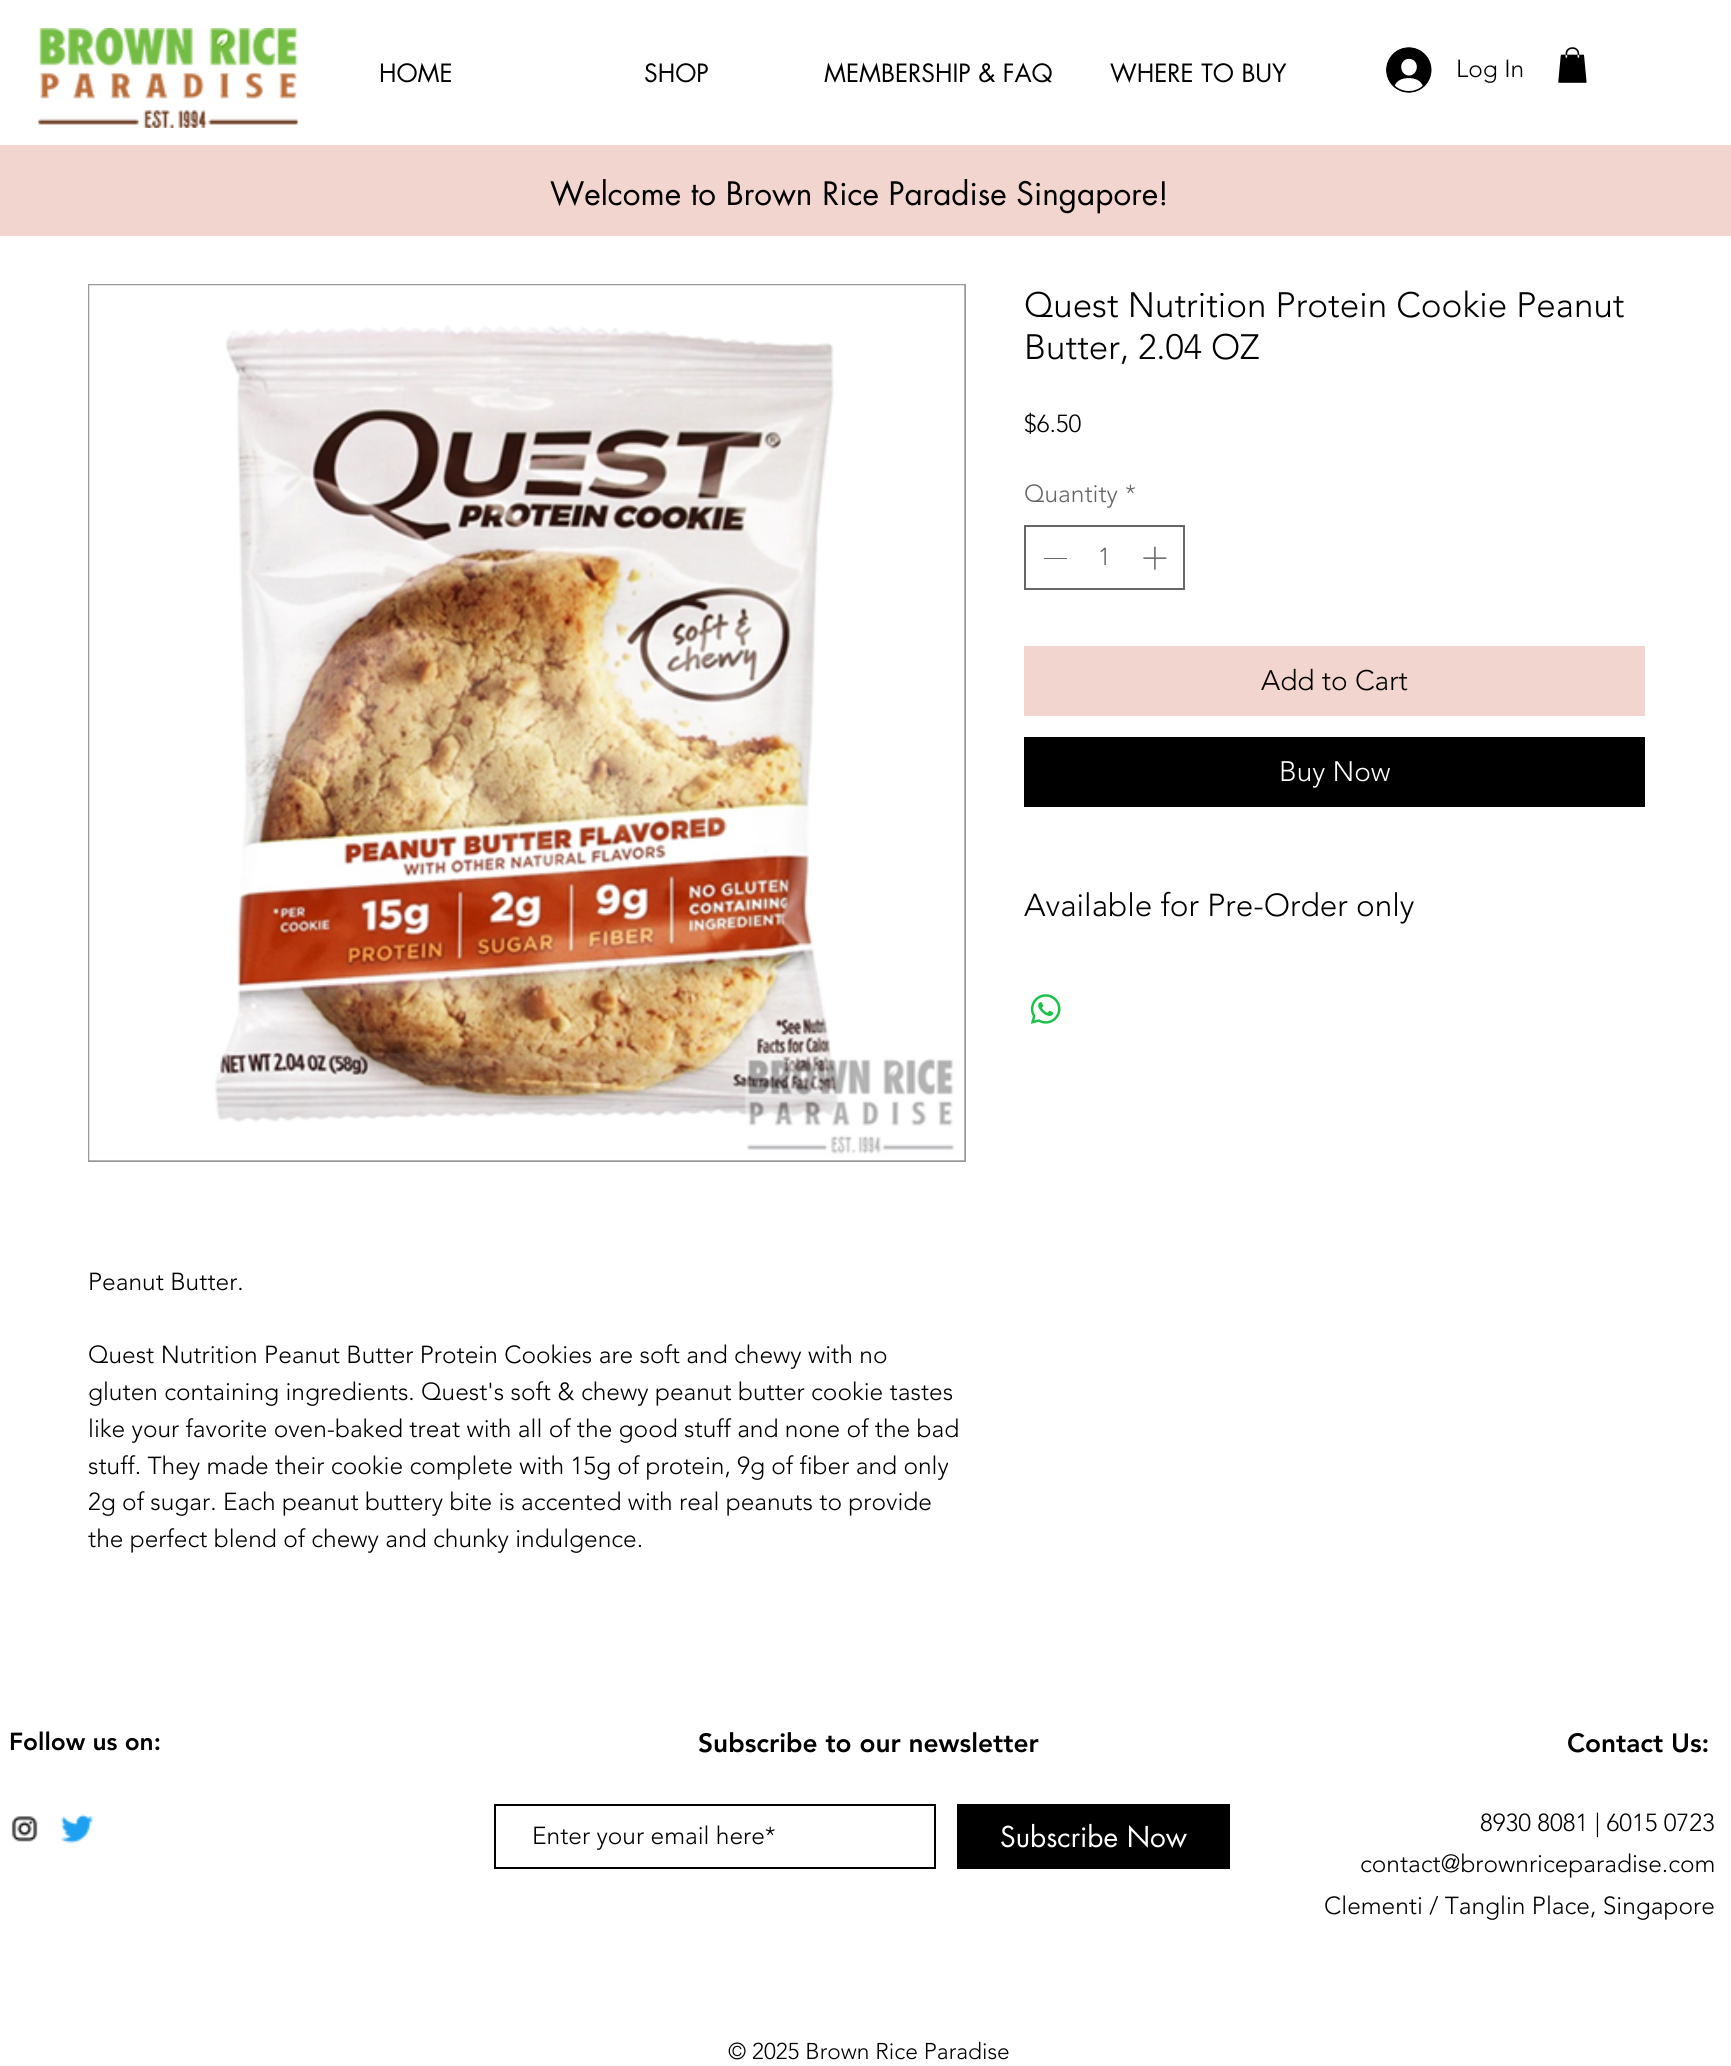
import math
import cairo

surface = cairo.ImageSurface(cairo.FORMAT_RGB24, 1731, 2066)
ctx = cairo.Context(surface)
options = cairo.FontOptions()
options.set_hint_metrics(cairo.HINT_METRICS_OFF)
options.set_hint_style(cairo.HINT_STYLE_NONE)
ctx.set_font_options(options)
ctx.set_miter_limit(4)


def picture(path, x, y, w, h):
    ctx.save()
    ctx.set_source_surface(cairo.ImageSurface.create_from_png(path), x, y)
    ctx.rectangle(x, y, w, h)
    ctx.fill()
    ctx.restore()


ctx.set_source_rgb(1, 1, 1)
ctx.paint()
ctx.select_font_face("futura")
ctx.set_font_size(24.5)
ctx.set_source_rgb(0, 0, 0)
ctx.move_to(379, 82)
ctx.show_text("HOME")
ctx.move_to(644, 82)
ctx.show_text("SHOP")
ctx.move_to(824, 82)
ctx.show_text("MEMBERSHIP & FAQ")
ctx.move_to(1110, 82)
ctx.show_text("WHERE TO BUY")
picture("img1.png", 1386, 47, 46, 46)
ctx.select_font_face("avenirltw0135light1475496 Light")
ctx.move_to(1456, 77)
ctx.show_text("Log In")
picture("img2.png", 1558, 47, 29, 36)
picture("img3.png", 38, 28, 260, 100)
ctx.set_source_rgb(0.949, 0.835, 0.808)
ctx.rectangle(0, 145, 1731, 91)
ctx.fill()
ctx.select_font_face("futura")
ctx.set_font_size(31.5)
ctx.set_source_rgb(0, 0, 0)
ctx.move_to(550, 205)
ctx.show_text("Welcome to Brown Rice Paradise Singapore!")
ctx.select_font_face("avenirltw0135light1475496 Light")
ctx.set_font_size(35)
ctx.move_to(1024, 317)
ctx.show_text("Quest Nutrition Protein Cookie Peanut")
ctx.move_to(1024, 359)
ctx.show_text("Butter, 2.04 OZ")
ctx.set_font_size(24.5)
ctx.move_to(1024, 432)
ctx.show_text("$6.50")
ctx.set_source_rgb(0.4, 0.4, 0.4)
ctx.move_to(1024, 502)
ctx.show_text("Quantity")
ctx.move_to(1125, 502)
ctx.show_text("*")
ctx.rectangle(1025, 526, 159, 63)
ctx.stroke()
ctx.rectangle(1044, 558, 23, 1)
ctx.fill()
ctx.move_to(1098, 565)
ctx.show_text("1")
picture("img4.png", 1143, 546, 24, 24)
ctx.set_source_rgb(0.949, 0.835, 0.808)
ctx.rectangle(1024, 646, 621, 70)
ctx.fill()
ctx.set_font_size(28)
ctx.set_source_rgb(0, 0, 0)
ctx.move_to(1261, 690)
ctx.show_text("Add to Cart")
ctx.rectangle(1024, 737, 621, 70)
ctx.fill()
ctx.set_source_rgb(1, 1, 1)
ctx.move_to(1279, 781)
ctx.show_text("Buy Now")
ctx.set_font_size(31.5)
ctx.set_source_rgb(0, 0, 0)
ctx.move_to(1024, 916)
ctx.show_text("Available for Pre-Order only")
picture("img5.png", 1030, 994, 31, 30)
ctx.rectangle(89, 285, 876, 876)
ctx.set_source_rgb(0.6, 0.6, 0.6)
ctx.stroke()
picture("img6.png", 89, 285, 876, 876)
ctx.set_font_size(24.5)
ctx.set_source_rgb(0, 0, 0)
ctx.move_to(88, 1290)
ctx.show_text("Peanut Butter.")
ctx.move_to(88, 1363)
ctx.show_text("Quest Nutrition Peanut Butter Protein Cookies are soft and chewy with no")
ctx.move_to(88, 1400)
ctx.show_text("gluten containing ingredients. Quest's soft & chewy peanut butter cookie tastes")
ctx.move_to(88, 1437)
ctx.show_text("like your favorite oven-baked treat with all of the good stuff and none of the bad")
ctx.move_to(88, 1474)
ctx.show_text("stuff. They made their cookie complete with 15g of protein, 9g of fiber and only")
ctx.move_to(88, 1510)
ctx.show_text("2g of sugar. Each peanut buttery bite is accented with real peanuts to provide")
ctx.move_to(88, 1547)
ctx.show_text("the perfect blend of chewy and chunky indulgence.")
ctx.select_font_face("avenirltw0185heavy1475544 Black")
ctx.move_to(9, 1750)
ctx.show_text("Follow us on:")
ctx.set_font_size(26.25)
ctx.move_to(698, 1752)
ctx.show_text("Subscribe to our newsletter")
ctx.rectangle(495, 1805, 440, 63)
ctx.stroke()
ctx.select_font_face("avenirltw0135light1475496 Light")
ctx.set_font_size(24.5)
ctx.move_to(532, 1844)
ctx.show_text("Enter your email here*")
ctx.rectangle(957, 1804, 273, 65)
ctx.fill()
ctx.select_font_face("futura")
ctx.set_font_size(28)
ctx.set_source_rgb(1, 1, 1)
ctx.move_to(1000, 1847)
ctx.show_text("Subscribe Now")
ctx.select_font_face("avenirltw0185heavy1475544 Black")
ctx.set_font_size(26.25)
ctx.set_source_rgb(0, 0, 0)
ctx.move_to(1567, 1752)
ctx.show_text("Contact Us:")
picture("img7.png", 11, 1816, 27, 26)
picture("img8.png", 61, 1814, 32, 30)
ctx.select_font_face("avenirltw0135light1475496 Light")
ctx.set_font_size(24.5)
ctx.move_to(1480, 1831)
ctx.show_text("8930 8081 | 6015 0723")
ctx.move_to(1360, 1872)
ctx.show_text("contact@brownriceparadise.com")
ctx.move_to(1324, 1914)
ctx.show_text("Clementi / Tanglin Place, Singapore")
ctx.set_font_size(22.75)
ctx.move_to(728, 2059)
ctx.show_text("© 2025 Brown Rice Paradise")
surface.write_to_png("page.png")
